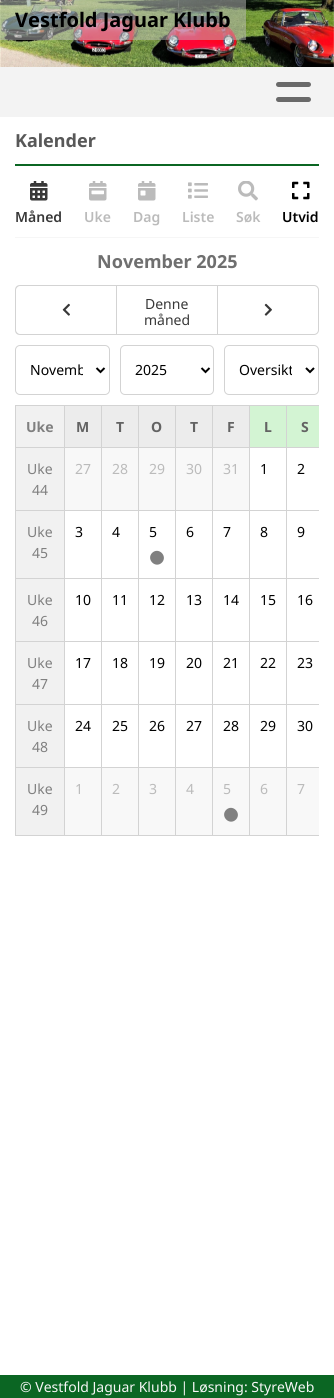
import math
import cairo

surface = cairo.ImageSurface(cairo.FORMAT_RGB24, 334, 1398)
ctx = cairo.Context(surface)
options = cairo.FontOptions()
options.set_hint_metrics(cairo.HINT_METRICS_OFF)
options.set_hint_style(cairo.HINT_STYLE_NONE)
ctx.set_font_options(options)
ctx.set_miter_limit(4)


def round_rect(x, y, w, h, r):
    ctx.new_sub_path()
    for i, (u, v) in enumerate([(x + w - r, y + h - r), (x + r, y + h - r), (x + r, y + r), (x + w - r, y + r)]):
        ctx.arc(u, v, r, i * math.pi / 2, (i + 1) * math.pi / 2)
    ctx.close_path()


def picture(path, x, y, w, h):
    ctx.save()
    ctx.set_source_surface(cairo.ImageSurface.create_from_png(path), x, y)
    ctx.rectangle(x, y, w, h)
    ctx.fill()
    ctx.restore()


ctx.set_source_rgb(1, 1, 1)
ctx.paint()
picture("img1.png", 0, 0, 334, 67)
ctx.set_source_rgba(0.749, 0.749, 0.749, 0.5)
ctx.rectangle(0, 0, 246, 40)
ctx.fill()
ctx.select_font_face("Noto Sans", cairo.FONT_SLANT_NORMAL, cairo.FONT_WEIGHT_BOLD)
ctx.set_font_size(20)
ctx.set_source_rgb(0, 0, 0)
ctx.move_to(15, 27)
ctx.show_text("Vestfold Jaguar Klubb")
ctx.set_source_rgb(0.953, 0.953, 0.953)
ctx.rectangle(0, 67, 334, 50)
ctx.fill()
ctx.set_source_rgb(0.412, 0.412, 0.412)
round_rect(276, 82, 35, 5, 2.5)
ctx.fill()
round_rect(276, 97, 35, 5, 2.5)
ctx.fill()
ctx.set_source_rgb(0.043, 0.4, 0.137)
ctx.rectangle(15, 164, 304, 2)
ctx.fill()
ctx.set_font_size(18)
ctx.set_source_rgb(0.345, 0.345, 0.345)
ctx.move_to(15, 147)
ctx.show_text("Kalender")
ctx.set_source_rgb(0.961, 0.961, 0.961)
ctx.rectangle(15, 237, 304, 1)
ctx.fill()
picture("img2.png", 30, 181, 18, 20)
ctx.select_font_face("Noto Sans SemiBold")
ctx.set_font_size(14)
ctx.set_source_rgb(0.22, 0.22, 0.22)
ctx.move_to(15, 222)
ctx.show_text("Måned")
picture("img3.png", 89, 181, 18, 20)
ctx.set_source_rgb(0.733, 0.733, 0.733)
ctx.move_to(84, 222)
ctx.show_text("Uke")
picture("img4.png", 138, 181, 18, 20)
ctx.move_to(133, 222)
ctx.show_text("Dag")
picture("img5.png", 188, 182, 20, 17)
ctx.move_to(182, 222)
ctx.show_text("Liste")
picture("img6.png", 238, 181, 20, 20)
ctx.move_to(236, 222)
ctx.show_text("Søk")
picture("img7.png", 292, 181, 18, 19)
ctx.set_source_rgb(0, 0, 0)
ctx.move_to(282, 222)
ctx.show_text("Utvid")
ctx.select_font_face("Noto Sans", cairo.FONT_SLANT_NORMAL, cairo.FONT_WEIGHT_BOLD)
ctx.set_font_size(18)
ctx.set_source_rgb(0.435, 0.435, 0.435)
ctx.move_to(97, 268)
ctx.show_text("November 2025")
ctx.set_source_rgb(0.827, 0.827, 0.827)
ctx.set_fill_rule(cairo.FILL_RULE_EVEN_ODD)
ctx.new_path()
ctx.move_to(20, 285)
ctx.line_to(116, 285)
ctx.line_to(116, 335)
ctx.line_to(20, 335)
ctx.curve_to(17, 335, 15, 333, 15, 330)
ctx.line_to(15, 290)
ctx.curve_to(15, 287, 17, 285, 20, 285)
ctx.close_path()
ctx.move_to(20, 286)
ctx.line_to(116, 286)
ctx.line_to(116, 334)
ctx.line_to(20, 334)
ctx.curve_to(18, 334, 16, 332, 16, 330)
ctx.line_to(16, 290)
ctx.curve_to(16, 288, 18, 286, 20, 286)
ctx.close_path()
ctx.fill()
picture("img8.png", 62, 303, 8, 13)
ctx.rectangle(116, 285, 101, 1)
ctx.fill()
ctx.rectangle(116, 334, 101, 1)
ctx.fill()
ctx.rectangle(116, 285, 1, 50)
ctx.fill()
ctx.select_font_face("Noto Sans")
ctx.set_font_size(14)
ctx.set_source_rgb(0.22, 0.22, 0.22)
ctx.move_to(145, 309)
ctx.show_text("Denne")
ctx.move_to(144, 325)
ctx.show_text("måned")
ctx.new_path()
ctx.move_to(217.5, 285.5)
ctx.line_to(314, 285.5)
ctx.curve_to(316.5, 285.5, 318.5, 287.5, 318.5, 290)
ctx.line_to(318.5, 330)
ctx.curve_to(318.5, 332.5, 316.5, 334.5, 314, 334.5)
ctx.line_to(217.5, 334.5)
ctx.close_path()
ctx.set_source_rgb(0.827, 0.827, 0.827)
ctx.set_line_width(1)
ctx.stroke()
picture("img9.png", 264, 303, 8, 13)
round_rect(15.5, 345.5, 94, 49, 4.5)
ctx.stroke()
ctx.new_path()
ctx.move_to(96.5, 368)
ctx.line_to(100.5, 372)
ctx.line_to(104.5, 368)
ctx.set_source_rgb(0, 0, 0)
ctx.set_line_width(2)
ctx.stroke()
ctx.save()
ctx.set_fill_rule(cairo.FILL_RULE_WINDING)
ctx.rectangle(30, 359, 53, 21)
ctx.clip()
ctx.move_to(30, 375)
ctx.show_text("Novemb")
ctx.restore()
round_rect(120.5, 345.5, 93, 49, 4.5)
ctx.set_source_rgb(0.827, 0.827, 0.827)
ctx.set_line_width(1)
ctx.stroke()
ctx.new_path()
ctx.move_to(201.5, 368)
ctx.line_to(205.5, 372)
ctx.line_to(209.5, 368)
ctx.set_source_rgb(0, 0, 0)
ctx.set_line_width(2)
ctx.stroke()
ctx.move_to(135, 375)
ctx.show_text("2025")
round_rect(224.5, 345.5, 94, 49, 4.5)
ctx.set_source_rgb(0.827, 0.827, 0.827)
ctx.set_line_width(1)
ctx.stroke()
ctx.new_path()
ctx.move_to(306, 368)
ctx.line_to(310, 372)
ctx.line_to(314, 368)
ctx.set_source_rgb(0, 0, 0)
ctx.set_line_width(2)
ctx.stroke()
ctx.save()
ctx.set_fill_rule(cairo.FILL_RULE_WINDING)
ctx.rectangle(239, 359, 53, 21)
ctx.clip()
ctx.move_to(239, 375)
ctx.show_text("Oversikt")
ctx.restore()
ctx.set_source_rgb(0.945, 0.945, 0.945)
ctx.rectangle(16, 406, 48, 41)
ctx.fill()
ctx.set_source_rgb(0.827, 0.827, 0.827)
ctx.rectangle(15, 405, 271, 1)
ctx.fill()
ctx.rectangle(15, 447, 271, 1)
ctx.fill()
ctx.rectangle(15, 405, 1, 43)
ctx.fill()
ctx.select_font_face("Noto Sans", cairo.FONT_SLANT_NORMAL, cairo.FONT_WEIGHT_BOLD)
ctx.set_source_rgb(0.502, 0.502, 0.502)
ctx.move_to(26, 432)
ctx.show_text("Uke")
ctx.set_source_rgb(0.922, 0.922, 0.922)
ctx.rectangle(65, 406, 36, 41)
ctx.fill()
ctx.set_source_rgb(0.827, 0.827, 0.827)
ctx.rectangle(64, 405, 1, 43)
ctx.fill()
ctx.set_source_rgb(0.388, 0.388, 0.388)
ctx.move_to(76, 432)
ctx.show_text("M")
ctx.set_source_rgb(0.922, 0.922, 0.922)
ctx.rectangle(102, 406, 36, 41)
ctx.fill()
ctx.set_source_rgb(0.827, 0.827, 0.827)
ctx.rectangle(101, 405, 1, 43)
ctx.fill()
ctx.set_source_rgb(0.388, 0.388, 0.388)
ctx.move_to(116, 432)
ctx.show_text("T")
ctx.set_source_rgb(0.922, 0.922, 0.922)
ctx.rectangle(139, 406, 36, 41)
ctx.fill()
ctx.set_source_rgb(0.827, 0.827, 0.827)
ctx.rectangle(138, 405, 1, 43)
ctx.fill()
ctx.set_source_rgb(0.388, 0.388, 0.388)
ctx.move_to(151, 432)
ctx.show_text("O")
ctx.set_source_rgb(0.922, 0.922, 0.922)
ctx.rectangle(176, 406, 36, 41)
ctx.fill()
ctx.set_source_rgb(0.827, 0.827, 0.827)
ctx.rectangle(175, 405, 1, 43)
ctx.fill()
ctx.set_source_rgb(0.388, 0.388, 0.388)
ctx.move_to(190, 432)
ctx.show_text("T")
ctx.set_source_rgb(0.922, 0.922, 0.922)
ctx.rectangle(213, 406, 36, 41)
ctx.fill()
ctx.set_source_rgb(0.827, 0.827, 0.827)
ctx.rectangle(212, 405, 1, 43)
ctx.fill()
ctx.set_source_rgb(0.388, 0.388, 0.388)
ctx.move_to(227, 432)
ctx.show_text("F")
ctx.set_source_rgb(0.827, 0.957, 0.827)
ctx.rectangle(250, 406, 36, 41)
ctx.fill()
ctx.set_source_rgb(0.827, 0.827, 0.827)
ctx.rectangle(249, 405, 1, 43)
ctx.fill()
ctx.set_source_rgb(0.388, 0.388, 0.388)
ctx.move_to(264, 432)
ctx.show_text("L")
ctx.set_source_rgb(0.827, 0.957, 0.827)
ctx.rectangle(287, 406, 32, 41)
ctx.fill()
ctx.save()
ctx.set_fill_rule(cairo.FILL_RULE_WINDING)
ctx.rectangle(15, 405, 304, 431)
ctx.clip()
ctx.rectangle(286.5, 405.5, 37, 42)
ctx.set_source_rgb(0.827, 0.827, 0.827)
ctx.set_line_width(1)
ctx.stroke()
ctx.restore()
ctx.set_source_rgb(0.388, 0.388, 0.388)
ctx.move_to(301, 432)
ctx.show_text("S")
ctx.set_source_rgb(0.945, 0.945, 0.945)
ctx.rectangle(16, 448, 48, 62)
ctx.fill()
ctx.set_source_rgb(0.827, 0.827, 0.827)
ctx.rectangle(15, 510, 304, 1)
ctx.fill()
ctx.rectangle(15, 448, 1, 63)
ctx.fill()
ctx.select_font_face("Noto Sans")
ctx.set_source_rgb(0.502, 0.502, 0.502)
ctx.move_to(27, 474)
ctx.show_text("Uke")
ctx.move_to(32, 495)
ctx.show_text("44")
ctx.set_source_rgb(0.969, 0.969, 0.969)
ctx.rectangle(65, 448, 36, 62)
ctx.fill()
ctx.set_source_rgb(0.827, 0.827, 0.827)
ctx.rectangle(64, 448, 1, 63)
ctx.fill()
ctx.set_source_rgb(0.733, 0.733, 0.733)
ctx.move_to(75, 474)
ctx.show_text("27")
ctx.set_source_rgb(0.969, 0.969, 0.969)
ctx.rectangle(102, 448, 36, 62)
ctx.fill()
ctx.set_source_rgb(0.827, 0.827, 0.827)
ctx.rectangle(101, 448, 1, 63)
ctx.fill()
ctx.set_source_rgb(0.733, 0.733, 0.733)
ctx.move_to(112, 474)
ctx.show_text("28")
ctx.set_source_rgb(0.969, 0.969, 0.969)
ctx.rectangle(139, 448, 36, 62)
ctx.fill()
ctx.set_source_rgb(0.827, 0.827, 0.827)
ctx.rectangle(138, 448, 1, 63)
ctx.fill()
ctx.set_source_rgb(0.733, 0.733, 0.733)
ctx.move_to(149, 474)
ctx.show_text("29")
ctx.set_source_rgb(0.969, 0.969, 0.969)
ctx.rectangle(176, 448, 36, 62)
ctx.fill()
ctx.set_source_rgb(0.827, 0.827, 0.827)
ctx.rectangle(175, 448, 1, 63)
ctx.fill()
ctx.set_source_rgb(0.733, 0.733, 0.733)
ctx.move_to(186, 474)
ctx.show_text("30")
ctx.set_source_rgb(0.969, 0.969, 0.969)
ctx.rectangle(213, 448, 36, 62)
ctx.fill()
ctx.set_source_rgb(0.827, 0.827, 0.827)
ctx.rectangle(212, 448, 1, 63)
ctx.fill()
ctx.set_source_rgb(0.733, 0.733, 0.733)
ctx.move_to(223, 474)
ctx.show_text("31")
ctx.set_source_rgb(0.827, 0.827, 0.827)
ctx.rectangle(249, 448, 1, 63)
ctx.fill()
ctx.set_source_rgb(0, 0, 0)
ctx.move_to(260, 474)
ctx.show_text("1")
ctx.set_source_rgb(0.827, 0.827, 0.827)
ctx.rectangle(286, 448, 1, 63)
ctx.fill()
ctx.set_source_rgb(0, 0, 0)
ctx.move_to(297, 474)
ctx.show_text("2")
ctx.set_source_rgb(0.945, 0.945, 0.945)
ctx.rectangle(16, 511, 48, 67)
ctx.fill()
ctx.set_source_rgb(0.827, 0.827, 0.827)
ctx.rectangle(15, 578, 304, 1)
ctx.fill()
ctx.rectangle(15, 511, 1, 68)
ctx.fill()
ctx.set_source_rgb(0.502, 0.502, 0.502)
ctx.move_to(27, 537)
ctx.show_text("Uke")
ctx.move_to(32, 558)
ctx.show_text("45")
ctx.set_source_rgb(0.827, 0.827, 0.827)
ctx.rectangle(64, 511, 1, 68)
ctx.fill()
ctx.set_source_rgb(0, 0, 0)
ctx.move_to(75, 537)
ctx.show_text("3")
ctx.set_source_rgb(0.827, 0.827, 0.827)
ctx.rectangle(101, 511, 1, 68)
ctx.fill()
ctx.set_source_rgb(0, 0, 0)
ctx.move_to(112, 537)
ctx.show_text("4")
ctx.set_source_rgb(0.827, 0.827, 0.827)
ctx.rectangle(138, 511, 1, 68)
ctx.fill()
ctx.set_source_rgb(0, 0, 0)
ctx.move_to(149, 537)
ctx.show_text("5")
ctx.set_source_rgb(0.502, 0.502, 0.502)
ctx.set_fill_rule(cairo.FILL_RULE_WINDING)
ctx.new_path()
ctx.move_to(152, 553)
ctx.curve_to(158.5, 546.5, 168, 556, 162, 562.5)
ctx.curve_to(155.5, 569, 146, 559.5, 152, 553)
ctx.close_path()
ctx.fill()
ctx.set_source_rgb(0.827, 0.827, 0.827)
ctx.rectangle(175, 511, 1, 68)
ctx.fill()
ctx.set_source_rgb(0, 0, 0)
ctx.move_to(186, 537)
ctx.show_text("6")
ctx.set_source_rgb(0.827, 0.827, 0.827)
ctx.rectangle(212, 511, 1, 68)
ctx.fill()
ctx.set_source_rgb(0, 0, 0)
ctx.move_to(223, 537)
ctx.show_text("7")
ctx.set_source_rgb(0.827, 0.827, 0.827)
ctx.rectangle(249, 511, 1, 68)
ctx.fill()
ctx.set_source_rgb(0, 0, 0)
ctx.move_to(260, 537)
ctx.show_text("8")
ctx.set_source_rgb(0.827, 0.827, 0.827)
ctx.rectangle(286, 511, 1, 68)
ctx.fill()
ctx.set_source_rgb(0, 0, 0)
ctx.move_to(297, 537)
ctx.show_text("9")
ctx.set_source_rgb(0.945, 0.945, 0.945)
ctx.rectangle(16, 579, 48, 62)
ctx.fill()
ctx.set_source_rgb(0.827, 0.827, 0.827)
ctx.rectangle(15, 641, 304, 1)
ctx.fill()
ctx.rectangle(15, 579, 1, 63)
ctx.fill()
ctx.set_source_rgb(0.502, 0.502, 0.502)
ctx.move_to(27, 605)
ctx.show_text("Uke")
ctx.move_to(32, 626)
ctx.show_text("46")
ctx.set_source_rgb(0.827, 0.827, 0.827)
ctx.rectangle(64, 579, 1, 63)
ctx.fill()
ctx.set_source_rgb(0, 0, 0)
ctx.move_to(75, 605)
ctx.show_text("10")
ctx.set_source_rgb(0.827, 0.827, 0.827)
ctx.rectangle(101, 579, 1, 63)
ctx.fill()
ctx.set_source_rgb(0, 0, 0)
ctx.move_to(112, 605)
ctx.show_text("11")
ctx.set_source_rgb(0.827, 0.827, 0.827)
ctx.rectangle(138, 579, 1, 63)
ctx.fill()
ctx.set_source_rgb(0, 0, 0)
ctx.move_to(149, 605)
ctx.show_text("12")
ctx.set_source_rgb(0.827, 0.827, 0.827)
ctx.rectangle(175, 579, 1, 63)
ctx.fill()
ctx.set_source_rgb(0, 0, 0)
ctx.move_to(186, 605)
ctx.show_text("13")
ctx.set_source_rgb(0.827, 0.827, 0.827)
ctx.rectangle(212, 579, 1, 63)
ctx.fill()
ctx.set_source_rgb(0, 0, 0)
ctx.move_to(223, 605)
ctx.show_text("14")
ctx.set_source_rgb(0.827, 0.827, 0.827)
ctx.rectangle(249, 579, 1, 63)
ctx.fill()
ctx.set_source_rgb(0, 0, 0)
ctx.move_to(260, 605)
ctx.show_text("15")
ctx.set_source_rgb(0.827, 0.827, 0.827)
ctx.rectangle(286, 579, 1, 63)
ctx.fill()
ctx.set_source_rgb(0, 0, 0)
ctx.move_to(297, 605)
ctx.show_text("16")
ctx.set_source_rgb(0.945, 0.945, 0.945)
ctx.rectangle(16, 642, 48, 62)
ctx.fill()
ctx.set_source_rgb(0.827, 0.827, 0.827)
ctx.rectangle(15, 704, 304, 1)
ctx.fill()
ctx.rectangle(15, 642, 1, 63)
ctx.fill()
ctx.set_source_rgb(0.502, 0.502, 0.502)
ctx.move_to(27, 668)
ctx.show_text("Uke")
ctx.move_to(32, 689)
ctx.show_text("47")
ctx.set_source_rgb(0.827, 0.827, 0.827)
ctx.rectangle(64, 642, 1, 63)
ctx.fill()
ctx.set_source_rgb(0, 0, 0)
ctx.move_to(75, 668)
ctx.show_text("17")
ctx.set_source_rgb(0.827, 0.827, 0.827)
ctx.rectangle(101, 642, 1, 63)
ctx.fill()
ctx.set_source_rgb(0, 0, 0)
ctx.move_to(112, 668)
ctx.show_text("18")
ctx.set_source_rgb(0.827, 0.827, 0.827)
ctx.rectangle(138, 642, 1, 63)
ctx.fill()
ctx.set_source_rgb(0, 0, 0)
ctx.move_to(149, 668)
ctx.show_text("19")
ctx.set_source_rgb(0.827, 0.827, 0.827)
ctx.rectangle(175, 642, 1, 63)
ctx.fill()
ctx.set_source_rgb(0, 0, 0)
ctx.move_to(186, 668)
ctx.show_text("20")
ctx.set_source_rgb(0.827, 0.827, 0.827)
ctx.rectangle(212, 642, 1, 63)
ctx.fill()
ctx.set_source_rgb(0, 0, 0)
ctx.move_to(223, 668)
ctx.show_text("21")
ctx.set_source_rgb(0.827, 0.827, 0.827)
ctx.rectangle(249, 642, 1, 63)
ctx.fill()
ctx.set_source_rgb(0, 0, 0)
ctx.move_to(260, 668)
ctx.show_text("22")
ctx.set_source_rgb(0.827, 0.827, 0.827)
ctx.rectangle(286, 642, 1, 63)
ctx.fill()
ctx.set_source_rgb(0, 0, 0)
ctx.move_to(297, 668)
ctx.show_text("23")
ctx.set_source_rgb(0.945, 0.945, 0.945)
ctx.rectangle(16, 705, 48, 62)
ctx.fill()
ctx.set_source_rgb(0.827, 0.827, 0.827)
ctx.rectangle(15, 767, 304, 1)
ctx.fill()
ctx.rectangle(15, 705, 1, 63)
ctx.fill()
ctx.set_source_rgb(0.502, 0.502, 0.502)
ctx.move_to(27, 731)
ctx.show_text("Uke")
ctx.move_to(32, 752)
ctx.show_text("48")
ctx.set_source_rgb(0.827, 0.827, 0.827)
ctx.rectangle(64, 705, 1, 63)
ctx.fill()
ctx.set_source_rgb(0, 0, 0)
ctx.move_to(75, 731)
ctx.show_text("24")
ctx.set_source_rgb(0.827, 0.827, 0.827)
ctx.rectangle(101, 705, 1, 63)
ctx.fill()
ctx.set_source_rgb(0, 0, 0)
ctx.move_to(112, 731)
ctx.show_text("25")
ctx.set_source_rgb(0.827, 0.827, 0.827)
ctx.rectangle(138, 705, 1, 63)
ctx.fill()
ctx.set_source_rgb(0, 0, 0)
ctx.move_to(149, 731)
ctx.show_text("26")
ctx.set_source_rgb(0.827, 0.827, 0.827)
ctx.rectangle(175, 705, 1, 63)
ctx.fill()
ctx.set_source_rgb(0, 0, 0)
ctx.move_to(186, 731)
ctx.show_text("27")
ctx.set_source_rgb(0.827, 0.827, 0.827)
ctx.rectangle(212, 705, 1, 63)
ctx.fill()
ctx.set_source_rgb(0, 0, 0)
ctx.move_to(223, 731)
ctx.show_text("28")
ctx.set_source_rgb(0.827, 0.827, 0.827)
ctx.rectangle(249, 705, 1, 63)
ctx.fill()
ctx.set_source_rgb(0, 0, 0)
ctx.move_to(260, 731)
ctx.show_text("29")
ctx.set_source_rgb(0.827, 0.827, 0.827)
ctx.rectangle(286, 705, 1, 63)
ctx.fill()
ctx.set_source_rgb(0, 0, 0)
ctx.move_to(297, 731)
ctx.show_text("30")
ctx.set_source_rgb(0.945, 0.945, 0.945)
ctx.rectangle(16, 768, 48, 67)
ctx.fill()
ctx.set_source_rgb(0.827, 0.827, 0.827)
ctx.rectangle(15, 835, 304, 1)
ctx.fill()
ctx.rectangle(15, 768, 1, 68)
ctx.fill()
ctx.set_source_rgb(0.502, 0.502, 0.502)
ctx.move_to(27, 794)
ctx.show_text("Uke")
ctx.move_to(32, 815)
ctx.show_text("49")
ctx.set_source_rgb(0.969, 0.969, 0.969)
ctx.rectangle(65, 768, 36, 67)
ctx.fill()
ctx.set_source_rgb(0.827, 0.827, 0.827)
ctx.rectangle(64, 768, 1, 68)
ctx.fill()
ctx.set_source_rgb(0.733, 0.733, 0.733)
ctx.move_to(75, 794)
ctx.show_text("1")
ctx.set_source_rgb(0.969, 0.969, 0.969)
ctx.rectangle(102, 768, 36, 67)
ctx.fill()
ctx.set_source_rgb(0.827, 0.827, 0.827)
ctx.rectangle(101, 768, 1, 68)
ctx.fill()
ctx.set_source_rgb(0.733, 0.733, 0.733)
ctx.move_to(112, 794)
ctx.show_text("2")
ctx.set_source_rgb(0.969, 0.969, 0.969)
ctx.rectangle(139, 768, 36, 67)
ctx.fill()
ctx.set_source_rgb(0.827, 0.827, 0.827)
ctx.rectangle(138, 768, 1, 68)
ctx.fill()
ctx.set_source_rgb(0.733, 0.733, 0.733)
ctx.move_to(149, 794)
ctx.show_text("3")
ctx.set_source_rgb(0.969, 0.969, 0.969)
ctx.rectangle(176, 768, 36, 67)
ctx.fill()
ctx.set_source_rgb(0.827, 0.827, 0.827)
ctx.rectangle(175, 768, 1, 68)
ctx.fill()
ctx.set_source_rgb(0.733, 0.733, 0.733)
ctx.move_to(186, 794)
ctx.show_text("4")
ctx.set_source_rgb(0.969, 0.969, 0.969)
ctx.rectangle(213, 768, 36, 67)
ctx.fill()
ctx.set_source_rgb(0.827, 0.827, 0.827)
ctx.rectangle(212, 768, 1, 68)
ctx.fill()
ctx.set_source_rgb(0.733, 0.733, 0.733)
ctx.move_to(223, 794)
ctx.show_text("5")
ctx.set_source_rgb(0.502, 0.502, 0.502)
ctx.new_path()
ctx.move_to(226, 810)
ctx.curve_to(232.5, 803.5, 242, 813, 236, 819.5)
ctx.curve_to(229.5, 826, 220, 816.5, 226, 810)
ctx.close_path()
ctx.fill()
ctx.set_source_rgb(0.969, 0.969, 0.969)
ctx.rectangle(250, 768, 36, 67)
ctx.fill()
ctx.set_source_rgb(0.827, 0.827, 0.827)
ctx.rectangle(249, 768, 1, 68)
ctx.fill()
ctx.set_source_rgb(0.733, 0.733, 0.733)
ctx.move_to(260, 794)
ctx.show_text("6")
ctx.set_source_rgb(0.969, 0.969, 0.969)
ctx.rectangle(287, 768, 32, 67)
ctx.fill()
ctx.set_source_rgb(0.827, 0.827, 0.827)
ctx.rectangle(286, 768, 1, 68)
ctx.fill()
ctx.set_source_rgb(0.733, 0.733, 0.733)
ctx.move_to(297, 794)
ctx.show_text("7")
ctx.set_source_rgb(0.043, 0.4, 0.137)
ctx.rectangle(0, 1375, 334, 23)
ctx.fill()
ctx.set_source_rgb(0.961, 0.961, 0.961)
ctx.move_to(20, 1392)
ctx.show_text("© Vestfold Jaguar Klubb | Løsning: StyreWeb")
surface.write_to_png("page.png")
